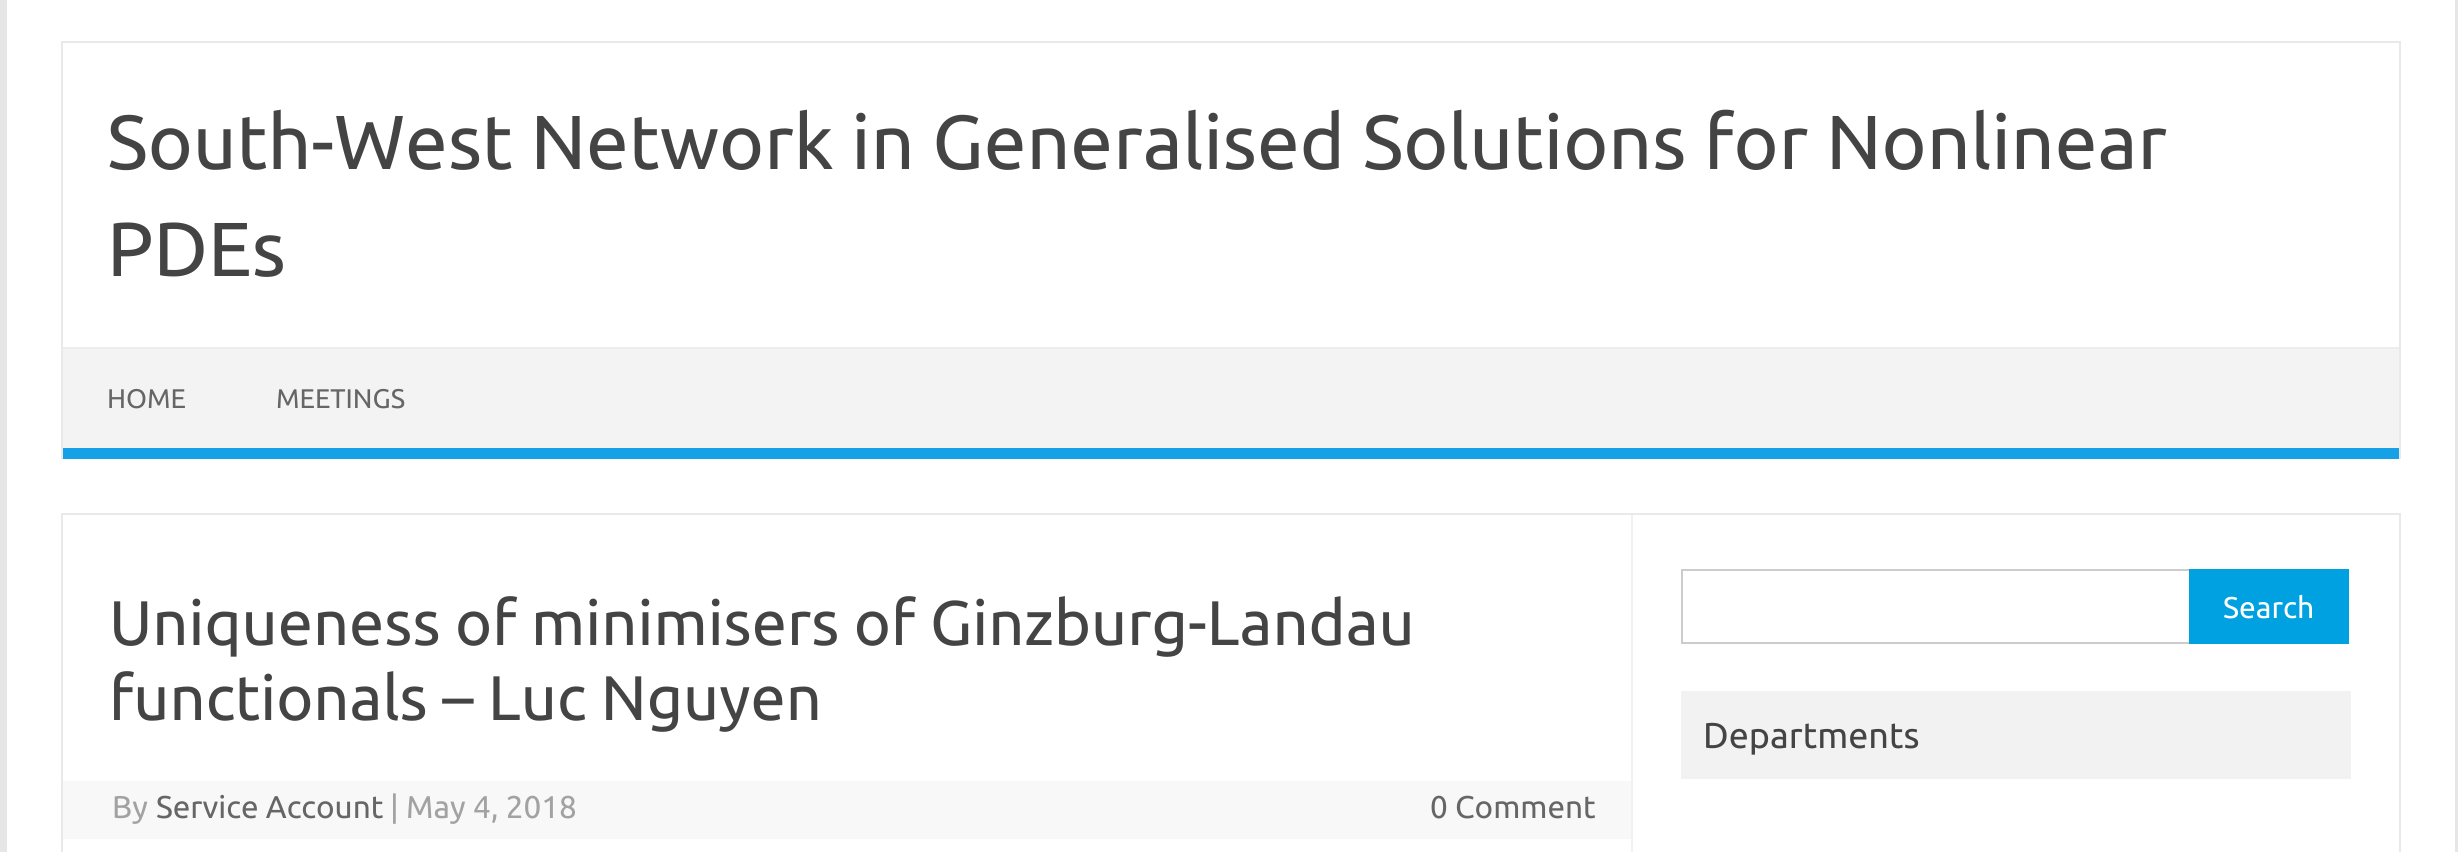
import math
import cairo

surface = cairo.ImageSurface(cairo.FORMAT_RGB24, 2458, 852)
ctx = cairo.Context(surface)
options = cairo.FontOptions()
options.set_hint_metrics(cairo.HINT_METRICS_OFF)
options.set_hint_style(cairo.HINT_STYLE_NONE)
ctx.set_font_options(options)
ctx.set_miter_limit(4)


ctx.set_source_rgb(0.902, 0.902, 0.902)
ctx.paint()
ctx.set_source_rgb(1, 1, 1)
ctx.rectangle(7, 0, 2448, 852)
ctx.fill()
ctx.set_source_rgb(0.914, 0.914, 0.914)
ctx.rectangle(61, 41, 2340, 2)
ctx.fill()
ctx.rectangle(2399, 41, 2, 418)
ctx.fill()
ctx.rectangle(61, 41, 2, 418)
ctx.fill()
ctx.select_font_face("Ubuntu")
ctx.set_font_size(76.5)
ctx.set_source_rgb(0.267, 0.267, 0.267)
ctx.move_to(107, 169)
ctx.show_text("South-West Network in Generalised Solutions for Nonlinear")
ctx.move_to(107, 276)
ctx.show_text("PDEs")
ctx.set_source_rgb(0.953, 0.953, 0.953)
ctx.rectangle(63, 349, 2336, 99)
ctx.fill()
ctx.set_source_rgb(0.929, 0.929, 0.929)
ctx.rectangle(63, 347, 2336, 2)
ctx.fill()
ctx.set_source_rgb(0.086, 0.631, 0.906)
ctx.rectangle(63, 448, 2336, 11)
ctx.fill()
ctx.set_font_size(27)
ctx.set_source_rgb(0.4, 0.4, 0.4)
ctx.move_to(107, 408)
ctx.show_text("HOME")
ctx.move_to(276, 408)
ctx.show_text("MEETINGS")
ctx.rectangle(62, 514, 2338, 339)
ctx.set_source_rgb(0.914, 0.914, 0.914)
ctx.stroke()
ctx.set_source_rgb(0.945, 0.945, 0.945)
ctx.rectangle(1631, 515, 2, 337)
ctx.fill()
ctx.set_font_size(63)
ctx.set_source_rgb(0.267, 0.267, 0.267)
ctx.move_to(109, 645)
ctx.show_text("Uniqueness of minimisers of Ginzburg-Landau")
ctx.move_to(109, 720)
ctx.show_text("functionals – Luc Nguyen")
ctx.set_source_rgb(0.969, 0.969, 0.969)
ctx.rectangle(63, 781, 1568, 58)
ctx.fill()
ctx.set_font_size(31.5)
ctx.set_source_rgb(0.635, 0.635, 0.635)
ctx.move_to(112, 818)
ctx.show_text("By")
ctx.set_source_rgb(0.4, 0.4, 0.4)
ctx.move_to(156, 818)
ctx.show_text("Service Account")
ctx.set_source_rgb(0.635, 0.635, 0.635)
ctx.move_to(390, 818)
ctx.show_text("| May 4, 2018")
ctx.set_source_rgb(0.4, 0.4, 0.4)
ctx.move_to(1430, 818)
ctx.show_text("0 Comment")
ctx.rectangle(1682, 570, 509, 73)
ctx.set_source_rgb(0.8, 0.8, 0.8)
ctx.stroke()
ctx.set_source_rgb(0, 0.631, 0.878)
ctx.rectangle(2189, 569, 160, 75)
ctx.fill()
ctx.set_font_size(30)
ctx.set_source_rgb(1, 1, 1)
ctx.move_to(2223, 618)
ctx.show_text("Search")
ctx.set_source_rgb(0.949, 0.949, 0.949)
ctx.rectangle(1681, 691, 670, 88)
ctx.fill()
ctx.set_font_size(36)
ctx.set_source_rgb(0.267, 0.267, 0.267)
ctx.move_to(1703, 748)
ctx.show_text("Departments")
surface.write_to_png("page.png")
